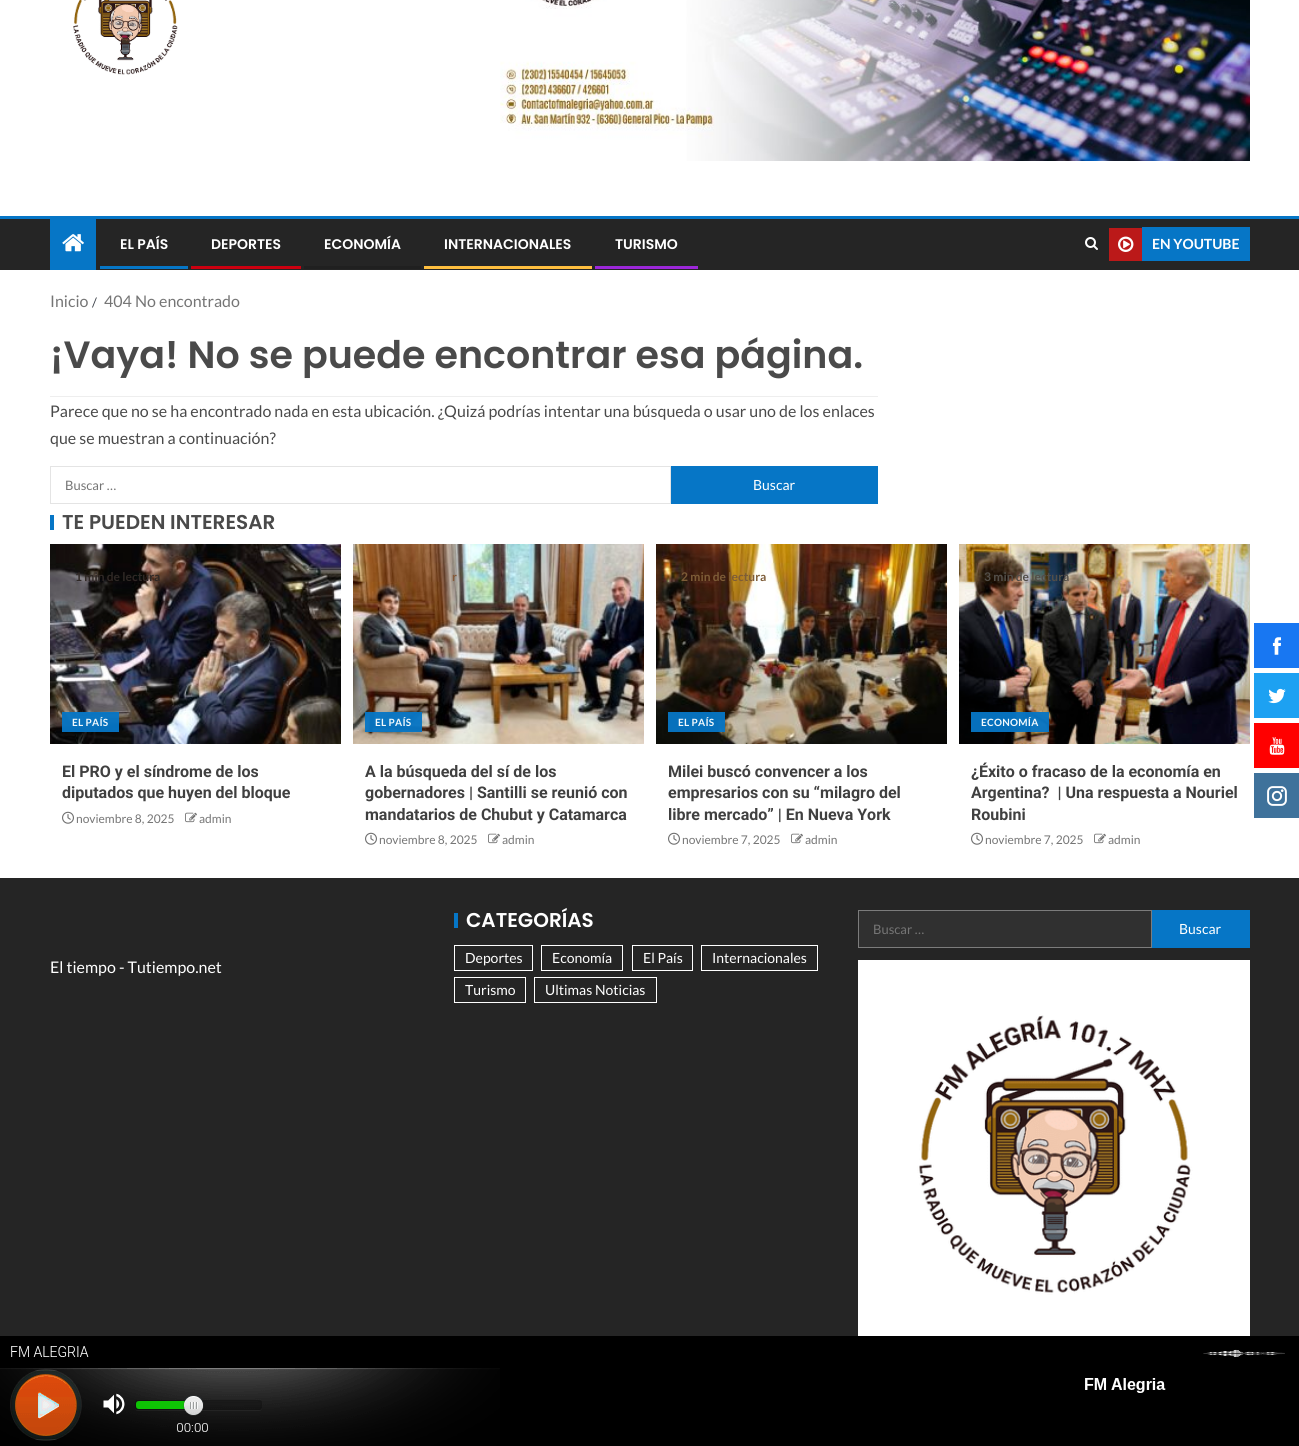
import math
import cairo

surface = cairo.ImageSurface(cairo.FORMAT_RGB24, 1299, 1446)
ctx = cairo.Context(surface)
options = cairo.FontOptions()
options.set_hint_metrics(cairo.HINT_METRICS_OFF)
options.set_hint_style(cairo.HINT_STYLE_NONE)
ctx.set_font_options(options)
ctx.set_miter_limit(4)


def spaced_text(x, y, s, letter, word):
    ctx.move_to(x, y)
    for ch in s:
        ctx.show_text(ch)
        ctx.rel_move_to(letter + word * (ch == ' '), 0)


def picture(path, x, y, w, h):
    ctx.save()
    ctx.set_source_surface(cairo.ImageSurface.create_from_png(path), x, y)
    ctx.rectangle(x, y, w, h)
    ctx.fill()
    ctx.restore()


ctx.set_source_rgb(1, 1, 1)
ctx.paint()
picture("img1.png", 73, 0, 105, 75)
picture("img2.png", 500, 0, 750, 161)
ctx.set_source_rgb(0.145, 0.145, 0.145)
ctx.rectangle(0, 219, 1299, 51)
ctx.fill()
ctx.set_source_rgb(0.027, 0.463, 0.776)
ctx.rectangle(0, 216, 1299, 3)
ctx.fill()
ctx.rectangle(50, 219, 46, 51)
ctx.fill()
picture("img3.png", 62, 234, 22, 18)
ctx.select_font_face("Poppins SemiBold")
ctx.set_font_size(14)
ctx.set_source_rgb(1, 1, 1)
ctx.move_to(120, 249)
ctx.show_text("EL PAÍS")
ctx.set_source_rgb(0.027, 0.463, 0.776)
ctx.rectangle(100, 266, 88, 3)
ctx.fill()
ctx.set_source_rgb(1, 1, 1)
ctx.move_to(211, 249)
ctx.show_text("DEPORTES")
ctx.set_source_rgb(0.8, 0, 0.063)
ctx.rectangle(191, 266, 110, 3)
ctx.fill()
ctx.set_source_rgb(1, 1, 1)
ctx.move_to(324, 249)
ctx.show_text("ECONOMÍA")
ctx.set_source_rgb(0.125, 0.125, 0.125)
ctx.rectangle(304, 266, 117, 3)
ctx.fill()
ctx.set_source_rgb(1, 1, 1)
ctx.move_to(444, 249)
ctx.show_text("INTERNACIONALES")
ctx.set_source_rgb(1, 0.749, 0.247)
ctx.rectangle(424, 266, 168, 3)
ctx.fill()
ctx.set_source_rgb(1, 1, 1)
ctx.move_to(615, 249)
ctx.show_text("TURISMO")
ctx.set_source_rgb(0.612, 0.153, 0.851)
ctx.rectangle(595, 266, 103, 3)
ctx.fill()
picture("img4.png", 1085, 237, 13, 13)
ctx.set_source_rgb(0.733, 0.098, 0.098)
ctx.rectangle(1109, 228, 33, 33)
ctx.fill()
picture("img5.png", 1118, 236, 16, 16)
ctx.set_source_rgb(0.027, 0.463, 0.776)
ctx.rectangle(1142, 227, 108, 34)
ctx.fill()
ctx.select_font_face("Lato", cairo.FONT_SLANT_NORMAL, cairo.FONT_WEIGHT_BOLD)
ctx.set_source_rgb(1, 1, 1)
ctx.move_to(1152, 249)
ctx.show_text("EN YOUTUBE")
ctx.select_font_face("Lato")
ctx.set_font_size(16)
ctx.set_source_rgb(0.459, 0.459, 0.459)
ctx.move_to(50, 307)
ctx.show_text("Inicio")
ctx.set_font_size(13)
ctx.set_source_rgb(0.224, 0.243, 0.275)
ctx.move_to(92, 307)
ctx.show_text("/")
ctx.set_font_size(16)
ctx.set_source_rgb(0.459, 0.459, 0.459)
ctx.move_to(104, 307)
ctx.show_text("404 No encontrado")
ctx.set_source_rgb(0.933, 0.933, 0.933)
ctx.rectangle(50, 396, 828, 1)
ctx.fill()
ctx.select_font_face("Poppins SemiBold")
ctx.set_font_size(38)
ctx.set_source_rgb(0.29, 0.29, 0.29)
ctx.move_to(50, 368)
ctx.show_text("¡Vaya! No se puede encontrar esa página.")
ctx.select_font_face("Lato")
ctx.set_font_size(16)
ctx.move_to(50, 417)
ctx.show_text("Parece que no se ha encontrado nada en esta ubicación. ¿Quizá podrías intentar una búsqueda o usar uno de los enlaces")
ctx.move_to(50, 444)
ctx.show_text("que se muestran a continuación?")
ctx.rectangle(50.5, 466.5, 620, 37)
ctx.set_source_rgb(0.894, 0.894, 0.894)
ctx.set_line_width(1)
ctx.stroke()
ctx.set_font_size(13)
ctx.set_source_rgb(0.459, 0.459, 0.459)
ctx.move_to(65, 490)
ctx.show_text("Buscar …")
ctx.set_source_rgb(0.027, 0.463, 0.776)
ctx.rectangle(671, 466, 207, 38)
ctx.fill()
ctx.set_font_size(14)
ctx.set_source_rgb(1, 1, 1)
ctx.move_to(753, 490)
ctx.show_text("Buscar")
ctx.set_source_rgb(0.027, 0.463, 0.776)
ctx.rectangle(50, 515, 4, 15)
ctx.fill()
ctx.select_font_face("Poppins SemiBold")
ctx.set_font_size(20)
ctx.set_source_rgb(0.29, 0.29, 0.29)
ctx.move_to(62, 529)
ctx.show_text("TE PUEDEN INTERESAR")
picture("img6.png", 50, 544, 291, 200)
ctx.select_font_face("Lato", cairo.FONT_SLANT_NORMAL, cairo.FONT_WEIGHT_BOLD)
ctx.set_font_size(12)
ctx.set_source_rgb(0.184, 0.157, 0.145)
ctx.move_to(75, 581)
ctx.show_text("1 min de lectura")
ctx.set_source_rgba(0.027, 0.463, 0.776, 0.95)
ctx.rectangle(62, 712, 57, 20)
ctx.fill()
ctx.set_font_size(10)
ctx.set_source_rgb(0.953, 0.973, 0.988)
spaced_text(72, 726, "EL PAÍS", 0.25, 0)
ctx.select_font_face("Roboto", cairo.FONT_SLANT_NORMAL, cairo.FONT_WEIGHT_BOLD)
ctx.set_font_size(16)
ctx.set_source_rgb(0.251, 0.251, 0.251)
ctx.move_to(62, 777)
ctx.show_text("El PRO y el síndrome de los")
ctx.move_to(62, 798)
ctx.show_text("diputados que huyen del bloque")
picture("img7.png", 62, 811, 12, 13)
ctx.select_font_face("Lato")
ctx.set_font_size(12)
ctx.set_source_rgb(0.459, 0.459, 0.459)
ctx.move_to(76, 823)
ctx.show_text("noviembre 8, 2025")
picture("img8.png", 185, 812, 12, 11)
ctx.move_to(199, 823)
ctx.show_text("admin")
picture("img9.png", 353, 544, 291, 200)
ctx.select_font_face("Lato", cairo.FONT_SLANT_NORMAL, cairo.FONT_WEIGHT_BOLD)
ctx.set_source_rgb(0.522, 0.349, 0.22)
ctx.move_to(452, 581)
ctx.show_text("r")
ctx.set_source_rgba(0.027, 0.463, 0.776, 0.95)
ctx.rectangle(365, 712, 57, 20)
ctx.fill()
ctx.set_font_size(10)
ctx.set_source_rgb(0.953, 0.973, 0.988)
spaced_text(375, 726, "EL PAÍS", 0.25, 0)
ctx.select_font_face("Roboto", cairo.FONT_SLANT_NORMAL, cairo.FONT_WEIGHT_BOLD)
ctx.set_font_size(16)
ctx.set_source_rgb(0.251, 0.251, 0.251)
ctx.move_to(365, 777)
ctx.show_text("A la búsqueda del sí de los")
ctx.move_to(365, 798)
ctx.show_text("gobernadores | Santilli se reunió con")
ctx.move_to(365, 820)
ctx.show_text("mandatarios de Chubut y Catamarca")
picture("img7.png", 365, 832, 12, 13)
ctx.select_font_face("Lato")
ctx.set_font_size(12)
ctx.set_source_rgb(0.459, 0.459, 0.459)
ctx.move_to(379, 844)
ctx.show_text("noviembre 8, 2025")
picture("img8.png", 488, 833, 12, 11)
ctx.move_to(502, 844)
ctx.show_text("admin")
picture("img10.png", 656, 544, 291, 200)
ctx.select_font_face("Lato", cairo.FONT_SLANT_NORMAL, cairo.FONT_WEIGHT_BOLD)
ctx.set_source_rgb(0.49, 0.361, 0.216)
ctx.move_to(681, 581)
ctx.show_text("2 min de lectura")
ctx.set_source_rgba(0.027, 0.463, 0.776, 0.95)
ctx.rectangle(668, 712, 57, 20)
ctx.fill()
ctx.set_font_size(10)
ctx.set_source_rgb(0.953, 0.973, 0.988)
spaced_text(678, 726, "EL PAÍS", 0.25, 0)
ctx.select_font_face("Roboto", cairo.FONT_SLANT_NORMAL, cairo.FONT_WEIGHT_BOLD)
ctx.set_font_size(16)
ctx.set_source_rgb(0.251, 0.251, 0.251)
ctx.move_to(668, 777)
ctx.show_text("Milei buscó convencer a los")
ctx.move_to(668, 798)
ctx.show_text("empresarios con su “milagro del")
ctx.move_to(668, 820)
ctx.show_text("libre mercado” | En Nueva York")
picture("img7.png", 668, 832, 12, 13)
ctx.select_font_face("Lato")
ctx.set_font_size(12)
ctx.set_source_rgb(0.459, 0.459, 0.459)
ctx.move_to(682, 844)
ctx.show_text("noviembre 7, 2025")
picture("img8.png", 791, 833, 12, 11)
ctx.move_to(805, 844)
ctx.show_text("admin")
picture("img11.png", 959, 544, 291, 200)
ctx.select_font_face("Lato", cairo.FONT_SLANT_NORMAL, cairo.FONT_WEIGHT_BOLD)
ctx.set_source_rgb(0.322, 0.306, 0.282)
ctx.move_to(984, 581)
ctx.show_text("3 min de lectura")
ctx.set_source_rgba(0.027, 0.463, 0.776, 0.95)
ctx.rectangle(971, 712, 78, 20)
ctx.fill()
ctx.set_font_size(10)
ctx.set_source_rgb(0.953, 0.973, 0.988)
spaced_text(981, 726, "ECONOMÍA", 0.25, 0)
ctx.select_font_face("Roboto", cairo.FONT_SLANT_NORMAL, cairo.FONT_WEIGHT_BOLD)
ctx.set_font_size(16)
ctx.set_source_rgb(0.251, 0.251, 0.251)
ctx.move_to(971, 777)
ctx.show_text("¿Éxito o fracaso de la economía en")
ctx.move_to(971, 798)
ctx.show_text("Argentina?  | Una respuesta a Nouriel")
ctx.move_to(971, 820)
ctx.show_text("Roubini")
picture("img7.png", 971, 832, 12, 13)
ctx.select_font_face("Lato")
ctx.set_font_size(12)
ctx.set_source_rgb(0.459, 0.459, 0.459)
ctx.move_to(985, 844)
ctx.show_text("noviembre 7, 2025")
picture("img8.png", 1094, 833, 12, 11)
ctx.move_to(1108, 844)
ctx.show_text("admin")
ctx.set_source_rgb(0.145, 0.145, 0.145)
ctx.rectangle(0, 878, 1299, 458)
ctx.fill()
ctx.set_source_rgb(0.027, 0.463, 0.776)
ctx.rectangle(454, 913, 4, 15)
ctx.fill()
ctx.select_font_face("Poppins SemiBold")
ctx.set_font_size(20)
ctx.set_source_rgb(1, 1, 1)
ctx.move_to(466, 927)
ctx.show_text("CATEGORÍAS")
ctx.rectangle(454.5, 945.5, 78, 25)
ctx.stroke()
ctx.select_font_face("Lato")
ctx.set_font_size(14)
ctx.move_to(465, 963)
ctx.show_text("Deportes")
ctx.rectangle(541.5, 945.5, 81, 25)
ctx.stroke()
ctx.move_to(552, 963)
ctx.show_text("Economía")
ctx.rectangle(632.5, 945.5, 60, 25)
ctx.stroke()
ctx.move_to(643, 963)
ctx.show_text("El País")
ctx.rectangle(701.5, 945.5, 116, 25)
ctx.stroke()
ctx.move_to(712, 963)
ctx.show_text("Internacionales")
ctx.rectangle(454.5, 977.5, 71, 25)
ctx.stroke()
ctx.move_to(465, 995)
ctx.show_text("Turismo")
ctx.rectangle(534.5, 977.5, 122, 25)
ctx.stroke()
ctx.move_to(545, 995)
ctx.show_text("Ultimas Noticias")
ctx.set_source_rgb(0.188, 0.188, 0.188)
ctx.rectangle(858.5, 910.5, 293, 37)
ctx.fill_preserve()
ctx.set_source_rgb(0.486, 0.486, 0.486)
ctx.stroke()
ctx.set_font_size(13)
ctx.set_source_rgb(0.459, 0.459, 0.459)
ctx.move_to(873, 934)
ctx.show_text("Buscar …")
ctx.set_source_rgb(0.027, 0.463, 0.776)
ctx.rectangle(1152, 910, 98, 38)
ctx.fill()
ctx.set_font_size(14)
ctx.set_source_rgb(1, 1, 1)
ctx.move_to(1179, 934)
ctx.show_text("Buscar")
picture("img12.png", 858, 960, 392, 376)
ctx.set_font_size(16)
ctx.move_to(50, 973)
ctx.show_text("El tiempo - Tutiempo.net")
picture("img13.png", 0, 1336, 1299, 110)
ctx.set_source_rgb(0.094, 0.467, 0.949)
ctx.rectangle(1254, 623, 45, 45)
ctx.fill()
picture("img14.png", 1272, 637, 9, 18)
ctx.set_source_rgb(0.114, 0.631, 0.949)
ctx.rectangle(1254, 673, 45, 45)
ctx.fill()
picture("img15.png", 1268, 688, 18, 16)
ctx.set_source_rgb(1, 0, 0)
ctx.rectangle(1254, 723, 45, 45)
ctx.fill()
picture("img16.png", 1269, 737, 16, 18)
ctx.set_source_rgb(0.247, 0.447, 0.608)
ctx.rectangle(1254, 773, 45, 45)
ctx.fill()
picture("img17.png", 1267, 786, 20, 20)
surface.write_to_png("page.png")
